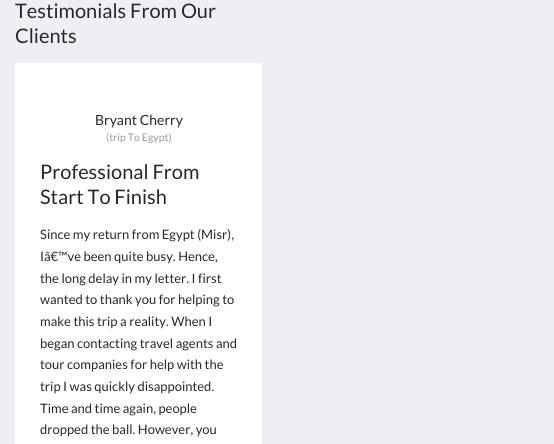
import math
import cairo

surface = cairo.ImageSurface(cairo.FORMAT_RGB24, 554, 444)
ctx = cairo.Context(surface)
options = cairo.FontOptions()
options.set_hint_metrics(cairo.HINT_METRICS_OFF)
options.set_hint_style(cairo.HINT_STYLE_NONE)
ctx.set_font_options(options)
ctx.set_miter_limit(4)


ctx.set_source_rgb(0.929, 0.937, 0.949)
ctx.paint()
ctx.select_font_face("Lato")
ctx.set_font_size(20)
ctx.set_source_rgb(0.149, 0.153, 0.169)
ctx.move_to(15, 18)
ctx.show_text("Testimonials From Our")
ctx.move_to(15, 43)
ctx.show_text("Clients")
ctx.set_source_rgb(1, 1, 1)
ctx.rectangle(15, 63, 247, 381)
ctx.fill()
ctx.set_font_size(14)
ctx.set_source_rgb(0.149, 0.153, 0.169)
ctx.move_to(95, 125)
ctx.show_text("Bryant Cherry")
ctx.set_font_size(10.5)
ctx.set_source_rgb(0.6, 0.6, 0.6)
ctx.move_to(106, 141)
ctx.show_text("(trip To Egypt)")
ctx.set_font_size(20)
ctx.set_source_rgb(0.149, 0.153, 0.169)
ctx.move_to(40, 179)
ctx.show_text("Professional From")
ctx.move_to(40, 204)
ctx.show_text("Start To Finish")
ctx.set_font_size(13)
ctx.move_to(40, 239)
ctx.show_text("Since my return from Egypt (Misr),")
ctx.move_to(40, 261)
ctx.show_text("Iâ€™ve been quite busy. Hence,")
ctx.move_to(40, 283)
ctx.show_text("the long delay in my letter. I first")
ctx.move_to(40, 304)
ctx.show_text("wanted to thank you for helping to")
ctx.move_to(40, 326)
ctx.show_text("make this trip a reality. When I")
ctx.move_to(40, 348)
ctx.show_text("began contacting travel agents and")
ctx.move_to(40, 369)
ctx.show_text("tour companies for help with the")
ctx.move_to(40, 391)
ctx.show_text("trip I was quickly disappointed.")
ctx.move_to(40, 413)
ctx.show_text("Time and time again, people")
ctx.move_to(40, 434)
ctx.show_text("dropped the ball. However, you")
surface.write_to_png("page.png")
